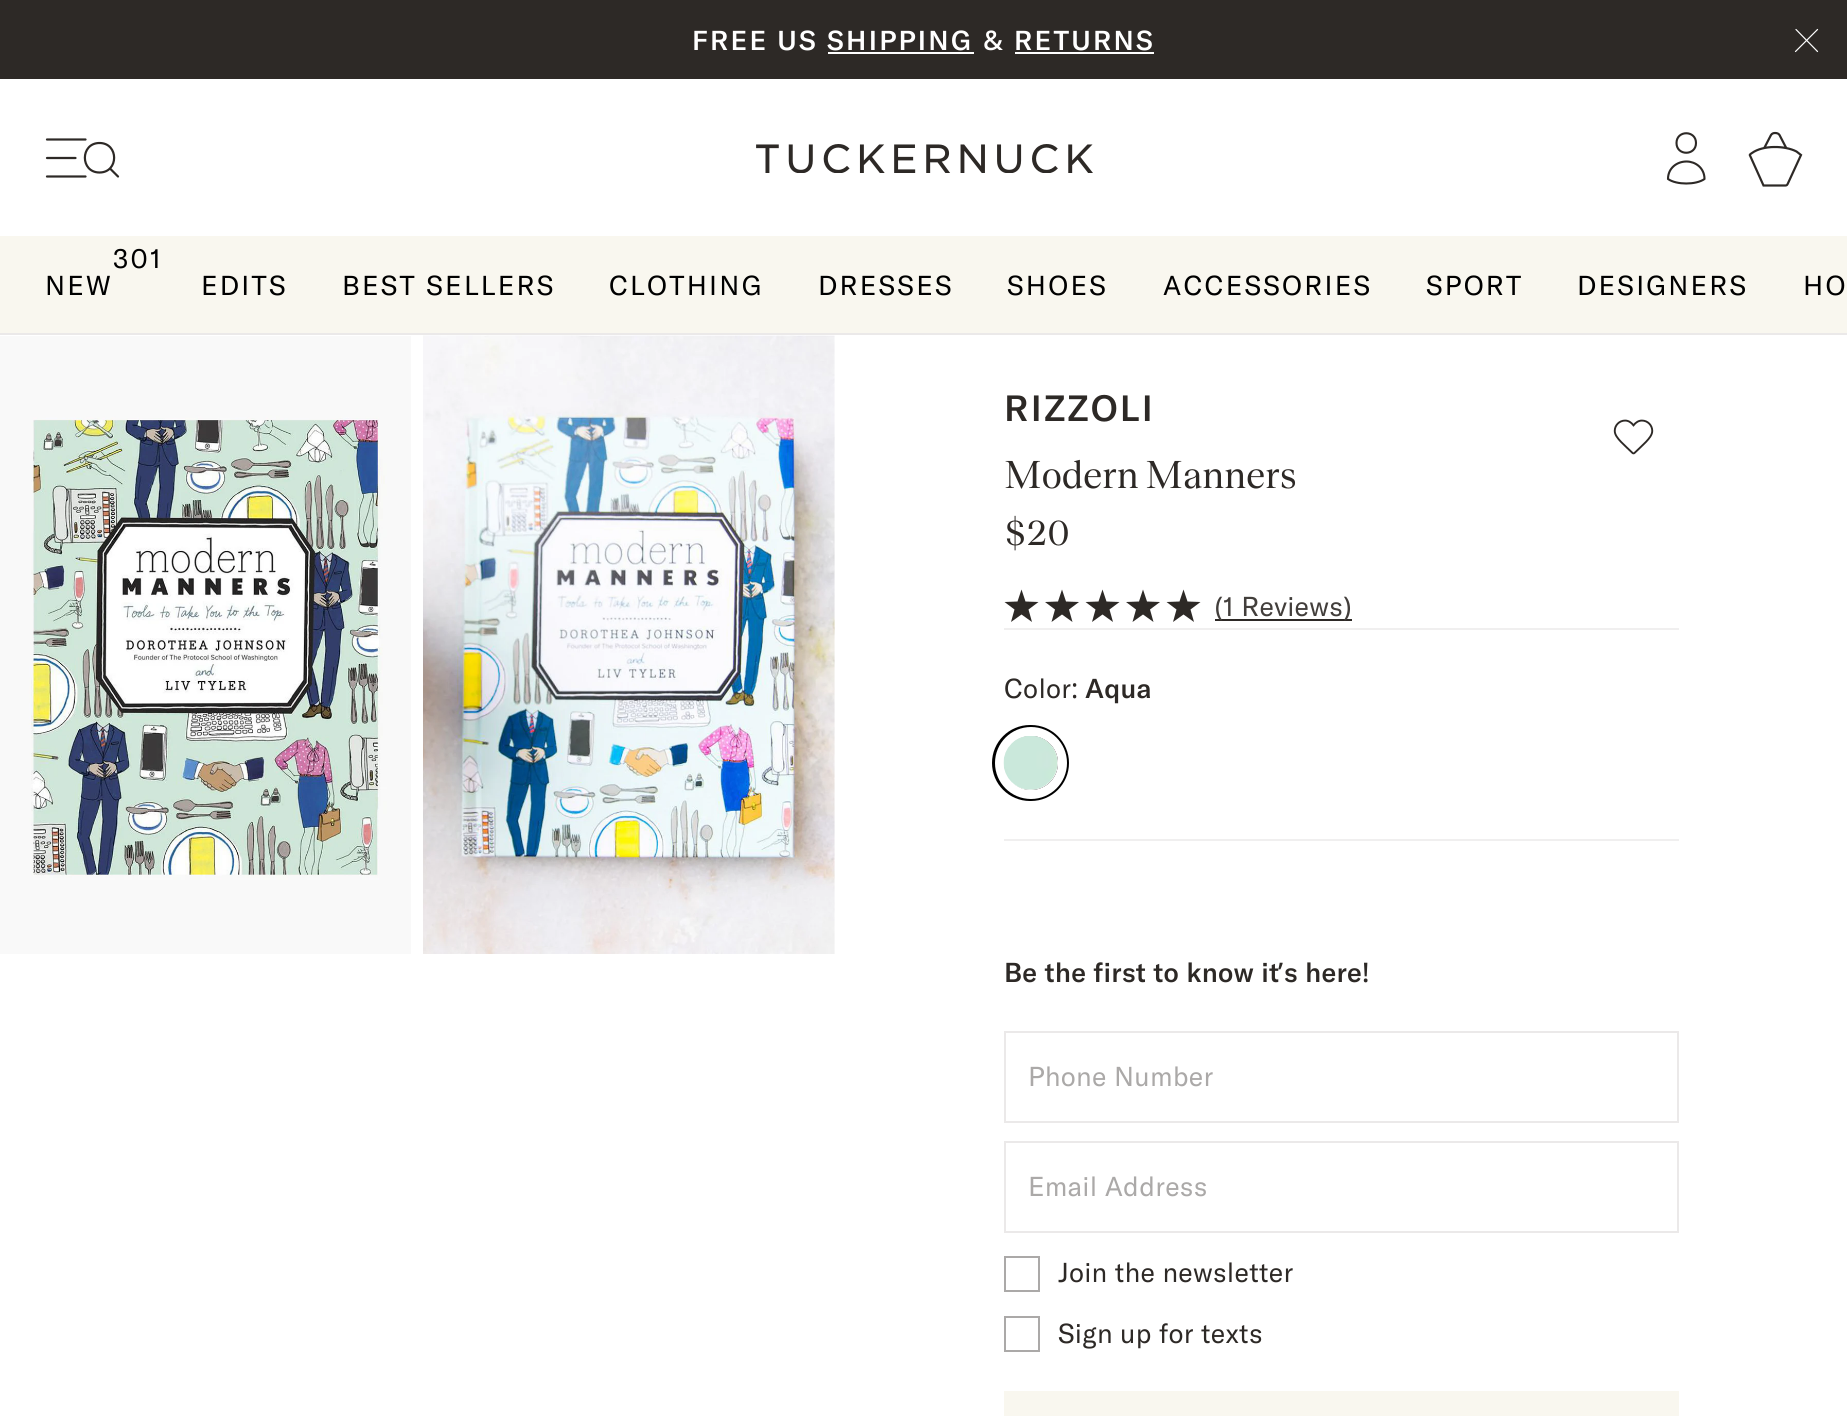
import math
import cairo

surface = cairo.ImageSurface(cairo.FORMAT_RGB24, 1847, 1416)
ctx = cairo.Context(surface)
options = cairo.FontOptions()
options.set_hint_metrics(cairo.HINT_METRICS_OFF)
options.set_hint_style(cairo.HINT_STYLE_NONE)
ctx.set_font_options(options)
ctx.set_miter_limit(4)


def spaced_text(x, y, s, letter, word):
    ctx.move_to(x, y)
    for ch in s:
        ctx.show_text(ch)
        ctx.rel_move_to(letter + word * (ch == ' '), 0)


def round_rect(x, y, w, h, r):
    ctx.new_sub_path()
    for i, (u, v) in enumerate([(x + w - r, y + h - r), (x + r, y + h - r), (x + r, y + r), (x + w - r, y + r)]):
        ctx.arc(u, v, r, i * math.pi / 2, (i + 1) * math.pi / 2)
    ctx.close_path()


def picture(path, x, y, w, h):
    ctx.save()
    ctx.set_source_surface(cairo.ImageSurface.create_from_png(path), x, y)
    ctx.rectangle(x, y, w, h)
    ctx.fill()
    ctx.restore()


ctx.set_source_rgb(1, 1, 1)
ctx.paint()
ctx.set_source_rgb(0.176, 0.161, 0.149)
ctx.rectangle(0, 0, 1847, 79)
ctx.fill()
ctx.select_font_face("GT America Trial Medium")
ctx.set_font_size(27)
ctx.set_source_rgb(1, 1, 1)
spaced_text(692, 50, "FREE US SHIPPING", 2.25, 0)
ctx.select_font_face("Noto Sans Medium")
spaced_text(983, 50, "&", 2.25, 0)
ctx.select_font_face("GT America Trial Medium")
spaced_text(1014, 50, "RETURNS", 2.25, 0)
ctx.rectangle(1015, 52, 139, 2)
ctx.fill()
ctx.rectangle(828, 52, 146, 2)
ctx.fill()
ctx.new_path()
ctx.move_to(1817.5, 29.5)
ctx.line_to(1795.5, 51.5)
ctx.move_to(1817.5, 51.5)
ctx.line_to(1796, 29.5)
ctx.set_line_width(1.2)
ctx.set_line_cap(cairo.LINE_CAP_ROUND)
ctx.stroke()
ctx.new_path()
ctx.move_to(99.5, 172.5)
ctx.curve_to(119, 172.5, 119, 143, 99.5, 143)
ctx.curve_to(80, 143, 80, 172.5, 99.5, 172.5)
ctx.close_path()
ctx.move_to(118, 176.5)
ctx.line_to(110, 168.5)
ctx.set_source_rgb(0.176, 0.161, 0.149)
ctx.set_line_width(2.2)
ctx.set_line_join(cairo.LINE_JOIN_ROUND)
ctx.stroke()
ctx.new_path()
ctx.move_to(85.5, 139.5)
ctx.line_to(47, 139.5)
ctx.move_to(75.5, 158)
ctx.line_to(47, 158)
ctx.move_to(85.5, 176.5)
ctx.line_to(47, 176.5)
ctx.set_line_join(cairo.LINE_JOIN_MITER)
ctx.stroke()
picture("img1.png", 756, 144, 337, 29)
ctx.new_path()
ctx.move_to(1696, 143)
ctx.curve_to(1696, 156, 1676.5, 156, 1676.5, 143)
ctx.curve_to(1676.5, 130, 1696, 130, 1696, 143)
ctx.close_path()
ctx.move_to(1686.5, 161.5)
ctx.curve_to(1677, 161.5, 1668, 168, 1668, 179)
ctx.curve_to(1676.5, 185, 1696, 185, 1704.5, 179)
ctx.curve_to(1704.5, 168, 1695.5, 161.5, 1686.5, 161.5)
ctx.close_path()
ctx.set_line_width(2.1)
ctx.set_line_join(cairo.LINE_JOIN_ROUND)
ctx.stroke()
ctx.new_path()
ctx.move_to(1786.5, 148.5)
ctx.line_to(1779.5, 135)
ctx.curve_to(1778.5, 133.5, 1777, 133, 1775, 133)
ctx.curve_to(1773.5, 133, 1772, 133.5, 1771, 135)
ctx.line_to(1764, 148.5)
ctx.move_to(1750, 155.5)
ctx.curve_to(1749, 154.5, 1751.5, 153.5, 1752, 153)
ctx.curve_to(1763, 145, 1785, 145.5, 1796.5, 151.5)
ctx.line_to(1801, 155)
ctx.line_to(1789.5, 180)
ctx.curve_to(1786.5, 186, 1788, 185.5, 1782.5, 185.5)
ctx.line_to(1763.5, 185.5)
ctx.close_path()
ctx.set_line_width(2.2)
ctx.set_line_cap(cairo.LINE_CAP_BUTT)
ctx.set_line_join(cairo.LINE_JOIN_MITER)
ctx.stroke()
ctx.set_source_rgb(0.973, 0.965, 0.937)
ctx.rectangle(0, 236, 1847, 97)
ctx.fill()
ctx.set_source_rgb(0.918, 0.914, 0.914)
ctx.rectangle(0, 333, 1847, 2)
ctx.fill()
ctx.select_font_face("GT America Trial")
ctx.set_source_rgb(0, 0, 0)
spaced_text(113, 268, "301", 2.25, 0)
spaced_text(45, 295, "NEW", 2.25, 0)
spaced_text(201, 295, "EDITS", 2.25, 0)
spaced_text(342, 295, "BEST SELLERS", 2.25, 0)
spaced_text(609, 295, "CLOTHING", 2.25, 0)
spaced_text(818, 295, "DRESSES", 2.25, 0)
spaced_text(1007, 295, "SHOES", 2.25, 0)
spaced_text(1163, 295, "ACCESSORIES", 2.25, 0)
spaced_text(1426, 295, "SPORT", 2.25, 0)
spaced_text(1577, 295, "DESIGNERS", 2.25, 0)
spaced_text(1803, 295, "HO", 2.25, 0)
picture("img2.png", 0, 336, 411, 618)
picture("img3.png", 423, 335, 412, 619)
ctx.set_source_rgb(0.941, 0.937, 0.937)
ctx.rectangle(1004, 628, 675, 2)
ctx.fill()
ctx.select_font_face("GT America Trial Medium")
ctx.set_font_size(36)
ctx.set_source_rgb(0.176, 0.161, 0.149)
spaced_text(1004, 421, "RIZZOLI", 2.25, 0)
picture("img4.png", 1613, 419, 41, 36)
ctx.select_font_face("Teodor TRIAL")
ctx.set_font_size(40.5)
ctx.move_to(1004, 488)
ctx.show_text("Modern Manners")
ctx.set_font_size(36)
ctx.move_to(1004, 545)
ctx.show_text("$20")
ctx.new_path()
ctx.move_to(1021.5, 589.5)
ctx.line_to(1025.5, 601.5)
ctx.line_to(1038.5, 602)
ctx.line_to(1028.5, 609.5)
ctx.line_to(1032, 622)
ctx.line_to(1021.5, 614.5)
ctx.line_to(1011, 622)
ctx.line_to(1014.5, 609.5)
ctx.line_to(1004.5, 602)
ctx.line_to(1017.5, 601.5)
ctx.close_path()
ctx.fill()
ctx.new_path()
ctx.move_to(1062, 589.5)
ctx.line_to(1066, 601.5)
ctx.line_to(1079, 602)
ctx.line_to(1069, 609.5)
ctx.line_to(1072.5, 622)
ctx.line_to(1062, 614.5)
ctx.line_to(1051.5, 622)
ctx.line_to(1055, 609.5)
ctx.line_to(1045, 602)
ctx.line_to(1058, 601.5)
ctx.close_path()
ctx.fill()
ctx.new_path()
ctx.move_to(1102.5, 589.5)
ctx.line_to(1106.5, 601.5)
ctx.line_to(1119.5, 602)
ctx.line_to(1109.5, 609.5)
ctx.line_to(1113, 622)
ctx.line_to(1102.5, 614.5)
ctx.line_to(1092, 622)
ctx.line_to(1095.5, 609.5)
ctx.line_to(1085.5, 602)
ctx.line_to(1098.5, 601.5)
ctx.close_path()
ctx.fill()
ctx.new_path()
ctx.move_to(1143, 589.5)
ctx.line_to(1147, 601.5)
ctx.line_to(1160, 602)
ctx.line_to(1150, 609.5)
ctx.line_to(1153.5, 622)
ctx.line_to(1143, 614.5)
ctx.line_to(1132.5, 622)
ctx.line_to(1136, 609.5)
ctx.line_to(1126, 602)
ctx.line_to(1139, 601.5)
ctx.close_path()
ctx.fill()
ctx.new_path()
ctx.move_to(1183.5, 589.5)
ctx.line_to(1187.5, 601.5)
ctx.line_to(1200.5, 602)
ctx.line_to(1190.5, 609.5)
ctx.line_to(1194, 622)
ctx.line_to(1183.5, 614.5)
ctx.line_to(1173, 622)
ctx.line_to(1176.5, 609.5)
ctx.line_to(1166.5, 602)
ctx.line_to(1179.5, 601.5)
ctx.close_path()
ctx.fill()
ctx.rectangle(1215, 619, 137, 2)
ctx.fill()
ctx.select_font_face("Noto Sans")
ctx.set_font_size(27)
ctx.set_source_rgb(0.259, 0.243, 0.231)
spaced_text(1215, 616, "(", 0.25, 0)
ctx.select_font_face("GT America Trial")
spaced_text(1223, 616, "1 Reviews", 0.25, 0)
ctx.select_font_face("Noto Sans")
spaced_text(1343, 616, ")", 0.25, 0)
ctx.set_source_rgb(0.941, 0.937, 0.937)
ctx.rectangle(1004, 839, 675, 2)
ctx.fill()
ctx.select_font_face("GT America Trial")
ctx.set_source_rgb(0.176, 0.161, 0.149)
spaced_text(1004, 698, "Color", 0.25, 0)
ctx.select_font_face("Noto Sans")
spaced_text(1071, 698, ":", 0.25, 0)
ctx.select_font_face("GT America Trial Medium")
spaced_text(1085, 698, "Aqua", 0.25, 0)
round_rect(997.5, 730.5, 66, 65, 32.5)
ctx.set_source_rgb(0, 0, 0)
ctx.set_line_width(11)
ctx.stroke()
ctx.arc(1031, 763, 31.5, 0, 2 * math.pi)
ctx.set_source_rgb(1, 1, 1)
ctx.set_line_width(9)
ctx.stroke()
picture("img5.png", 1003, 736, 55, 54)
ctx.set_source_rgb(0.176, 0.161, 0.149)
spaced_text(1004, 982, "Be the first to know it", 0.25, 0)
ctx.select_font_face("Noto Sans Medium")
spaced_text(1278, 982, "’", 0.25, 0)
ctx.select_font_face("GT America Trial Medium")
spaced_text(1284, 982, "s here", 0.25, 0)
ctx.select_font_face("Noto Sans Medium")
spaced_text(1362, 982, "!", 0.25, 0)
ctx.rectangle(1005, 1032, 673, 90)
ctx.set_source_rgb(0.918, 0.914, 0.914)
ctx.set_line_width(2)
ctx.stroke()
ctx.select_font_face("GT America Trial")
ctx.set_source_rgb(0.671, 0.663, 0.659)
spaced_text(1028, 1086, "Phone Number", 0.25, 0)
ctx.rectangle(1005, 1142, 673, 90)
ctx.set_source_rgb(0.918, 0.914, 0.914)
ctx.stroke()
ctx.set_source_rgb(0.671, 0.663, 0.659)
spaced_text(1028, 1196, "Email Address", 0.25, 0)
ctx.rectangle(1005, 1257, 34, 34)
ctx.stroke()
ctx.set_source_rgb(0.176, 0.161, 0.149)
spaced_text(1058, 1282, "Join the newsletter", 0.25, 0)
ctx.rectangle(1005, 1317, 34, 34)
ctx.set_source_rgb(0.671, 0.663, 0.659)
ctx.stroke()
ctx.set_source_rgb(0.176, 0.161, 0.149)
spaced_text(1058, 1343, "Sign up for texts", 0.25, 0)
ctx.set_source_rgb(0.973, 0.965, 0.937)
ctx.rectangle(1004, 1391, 675, 25)
ctx.fill()
surface.write_to_png("page.png")
